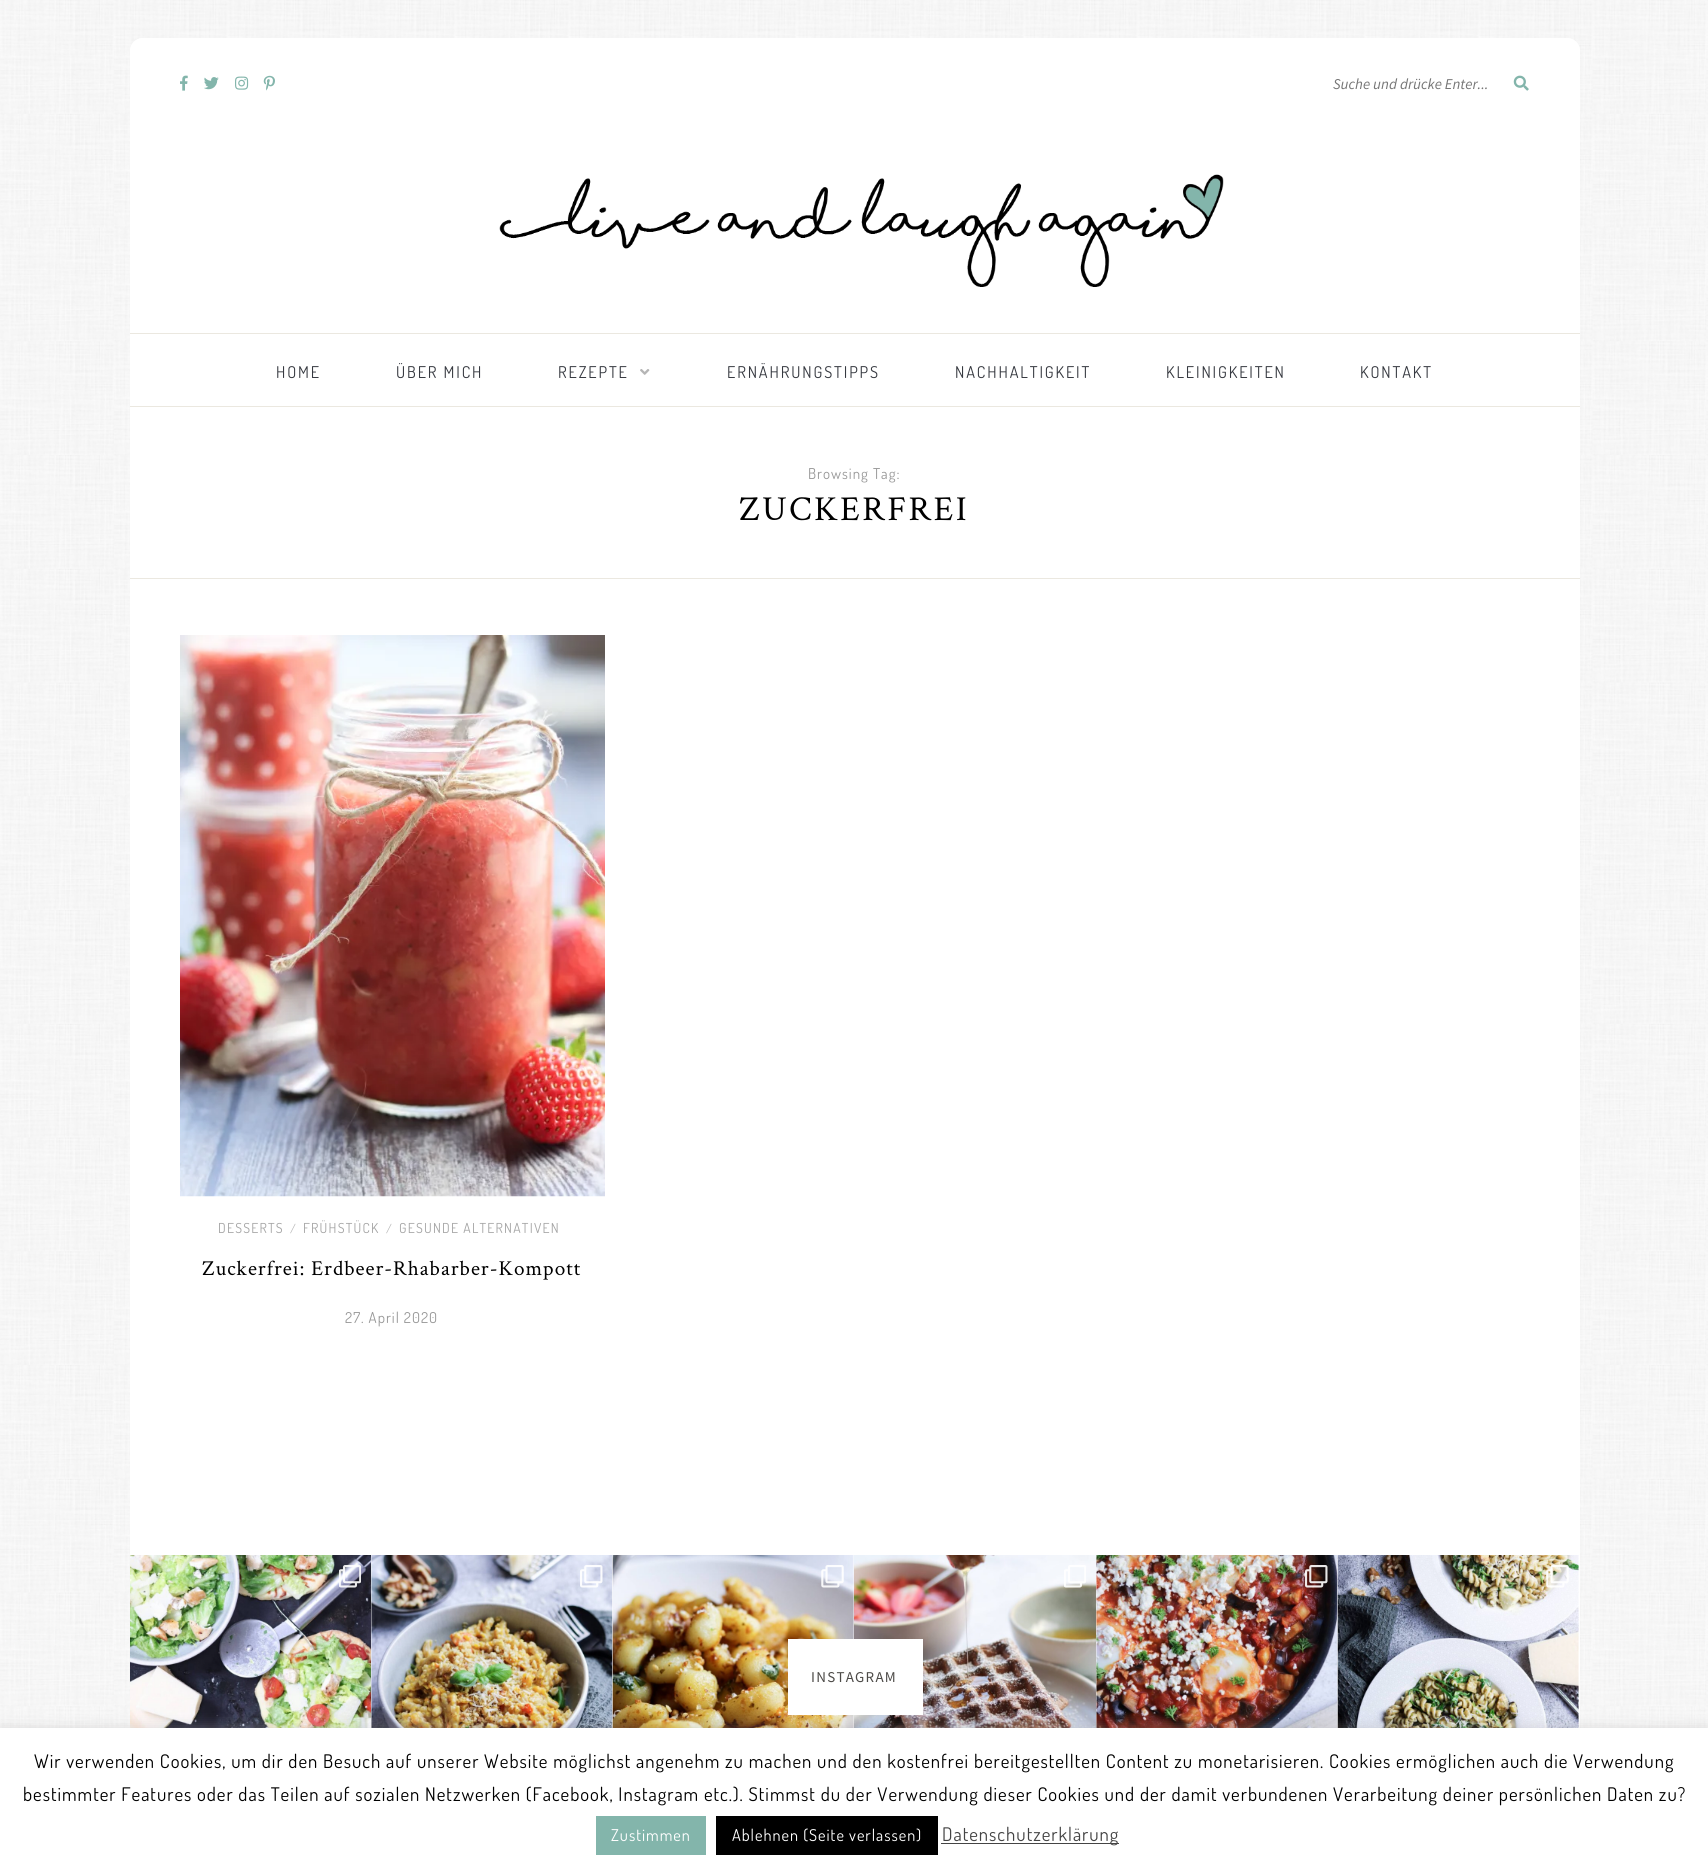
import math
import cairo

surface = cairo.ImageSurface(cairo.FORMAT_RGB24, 1708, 1869)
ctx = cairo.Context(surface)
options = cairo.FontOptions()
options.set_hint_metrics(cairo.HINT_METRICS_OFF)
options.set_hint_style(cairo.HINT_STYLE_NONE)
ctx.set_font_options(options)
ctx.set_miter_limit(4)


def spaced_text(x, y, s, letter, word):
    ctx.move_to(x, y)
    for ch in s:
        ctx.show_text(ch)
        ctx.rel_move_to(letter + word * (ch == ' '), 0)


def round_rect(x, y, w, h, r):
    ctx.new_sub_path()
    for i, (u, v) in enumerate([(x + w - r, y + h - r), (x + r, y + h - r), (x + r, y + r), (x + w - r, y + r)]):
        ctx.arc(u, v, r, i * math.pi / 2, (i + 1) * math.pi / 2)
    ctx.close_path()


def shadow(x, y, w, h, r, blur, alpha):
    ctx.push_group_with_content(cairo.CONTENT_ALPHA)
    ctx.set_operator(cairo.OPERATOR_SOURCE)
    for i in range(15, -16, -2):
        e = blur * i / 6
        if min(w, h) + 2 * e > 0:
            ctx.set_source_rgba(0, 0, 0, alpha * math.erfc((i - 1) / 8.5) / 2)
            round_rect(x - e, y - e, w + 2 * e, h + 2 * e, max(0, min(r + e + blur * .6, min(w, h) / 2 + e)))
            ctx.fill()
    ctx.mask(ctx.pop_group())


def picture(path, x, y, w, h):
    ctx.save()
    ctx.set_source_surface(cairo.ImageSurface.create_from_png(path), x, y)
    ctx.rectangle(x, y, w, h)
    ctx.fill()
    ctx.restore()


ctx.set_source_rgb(1, 1, 1)
ctx.paint()
picture("img1.png", 0, 0, 1708, 1728)
ctx.set_source_rgb(1, 1, 1)
round_rect(130, 38, 1450, 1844, 13)
ctx.fill()
ctx.new_path()
ctx.move_to(143, 38)
ctx.line_to(1567, 38)
ctx.curve_to(1574, 38, 1580, 44, 1580, 51)
ctx.line_to(1580, 333)
ctx.line_to(130, 333)
ctx.line_to(130, 51)
ctx.curve_to(130, 44, 136, 38, 143, 38)
ctx.close_path()
ctx.fill()
picture("img2.png", 180, 75, 8, 16)
picture("img3.png", 204, 77, 15, 13)
picture("img4.png", 235, 76, 14, 14)
picture("img5.png", 263, 75, 12, 16)
ctx.select_font_face("Source Sans Pro", cairo.FONT_SLANT_ITALIC)
ctx.set_font_size(15)
ctx.set_source_rgb(0.459, 0.459, 0.459)
ctx.move_to(1333, 89)
ctx.show_text("Suche und drücke Enter...")
picture("img6.png", 1513, 75, 16, 16)
picture("img7.png", 499, 174, 725, 113)
ctx.set_source_rgb(0.918, 0.91, 0.878)
ctx.rectangle(130, 333, 1450, 1)
ctx.fill()
ctx.rectangle(130, 406, 1450, 1)
ctx.fill()
ctx.select_font_face("Dosis")
ctx.set_font_size(16.25)
ctx.set_source_rgb(0.212, 0.224, 0.251)
spaced_text(276, 378, "HOME", 1.9, 0)
spaced_text(396, 378, "ÜBER MICH", 1.9, 0)
spaced_text(558, 378, "REZEPTE", 1.9, 0)
picture("img8.png", 640, 369, 10, 6)
spaced_text(727, 378, "ERNÄHRUNGSTIPPS", 1.9, 0)
spaced_text(955, 378, "NACHHALTIGKEIT", 1.9, 0)
spaced_text(1166, 378, "KLEINIGKEITEN", 1.9, 0)
spaced_text(1360, 378, "KONTAKT", 1.9, 0)
ctx.set_source_rgb(0.918, 0.91, 0.878)
ctx.rectangle(130, 578, 1450, 1)
ctx.fill()
ctx.set_font_size(15)
ctx.set_source_rgb(0.6, 0.6, 0.6)
spaced_text(808, 479, "Browsing Tag:", 1, 0)
ctx.select_font_face("Crimson Text")
ctx.set_font_size(35)
ctx.set_source_rgb(0, 0, 0)
spaced_text(739, 520, "ZUCKERFREI", 2.5, 0)
picture("img9.png", 180, 635, 425, 562)
ctx.select_font_face("Dosis")
ctx.set_font_size(13.75)
ctx.set_source_rgb(0.647, 0.647, 0.647)
spaced_text(218, 1233, "DESSERTS", 1.25, 0)
ctx.set_font_size(12)
ctx.set_source_rgb(0.71, 0.71, 0.71)
spaced_text(290, 1233, "/", 1, 0)
ctx.set_font_size(13.75)
ctx.set_source_rgb(0.647, 0.647, 0.647)
spaced_text(303, 1233, "FRÜHSTÜCK", 1.25, 0)
ctx.set_font_size(12)
ctx.set_source_rgb(0.71, 0.71, 0.71)
spaced_text(386, 1233, "/", 1, 0)
ctx.set_font_size(13.75)
ctx.set_source_rgb(0.647, 0.647, 0.647)
spaced_text(399, 1233, "GESUNDE ALTERNATIVEN", 1.25, 0)
ctx.select_font_face("Crimson Text")
ctx.set_font_size(21.25)
ctx.set_source_rgb(0, 0, 0)
spaced_text(202, 1275, "Zuckerfrei: Erdbeer-Rhabarber-Kompott", 1, 0)
ctx.select_font_face("Dosis")
ctx.set_font_size(15)
ctx.set_source_rgb(0.6, 0.6, 0.6)
spaced_text(345, 1323, "27. April 2020", 1, 0)
picture("img10.png", 130, 1555, 242, 173)
picture("img11.png", 339, 1565, 22, 23)
picture("img12.png", 371, 1555, 242, 173)
picture("img13.png", 580, 1565, 23, 23)
picture("img14.png", 612, 1555, 242, 173)
picture("img15.png", 821, 1565, 23, 23)
picture("img16.png", 853, 1555, 244, 173)
picture("img17.png", 1064, 1565, 22, 23)
picture("img18.png", 1096, 1555, 242, 173)
picture("img19.png", 1305, 1565, 23, 23)
picture("img20.png", 1337, 1555, 242, 173)
picture("img21.png", 1546, 1565, 23, 23)
ctx.set_source_rgb(1, 1, 1)
ctx.rectangle(788, 1639, 135, 76)
ctx.fill()
ctx.select_font_face("Source Sans Pro")
ctx.set_source_rgb(0.298, 0.29, 0.278)
spaced_text(811, 1682, "INSTAGRAM", 1.25, 0)
ctx.set_source_rgb(0.675, 0.671, 0.671)
shadow(0, 1726, 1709, 143, 0, 6, 0.3)
ctx.set_source_rgb(1, 1, 1)
ctx.rectangle(0, 1728, 1708, 141)
ctx.fill()
ctx.select_font_face("Dosis")
ctx.set_font_size(18.75)
ctx.set_source_rgb(0, 0, 0)
spaced_text(34, 1768, "Wir verwenden Cookies, um dir den Besuch auf unserer Website möglichst angenehm zu machen und den kostenfrei bereitgestellten Content zu monetarisieren. Cookies ermöglichen auch die Verwendung", 1, 0)
spaced_text(23, 1801, "bestimmter Features oder das Teilen auf sozialen Netzwerken (Facebook, Instagram etc.). Stimmst du der Verwendung dieser Cookies und der damit verbundenen Verarbeitung deiner persönlichen Daten zu?", 1, 0)
ctx.set_source_rgb(0.514, 0.71, 0.671)
ctx.rectangle(596, 1816, 110, 39)
ctx.fill()
ctx.set_font_size(16.25)
ctx.set_source_rgb(1, 1, 1)
spaced_text(611, 1841, "Zustimmen", 1, 0)
ctx.set_source_rgb(0, 0, 0)
ctx.rectangle(716, 1816, 222, 39)
ctx.fill()
ctx.set_source_rgb(1, 1, 1)
spaced_text(732, 1841, "Ablehnen (Seite verlassen)", 1, 0)
ctx.set_source_rgb(0.267, 0.267, 0.267)
ctx.rectangle(941, 1843, 178, 1)
ctx.fill()
ctx.set_font_size(18.75)
spaced_text(942, 1841, "Datenschutzerklärung", 1, 0)
surface.write_to_png("page.png")
